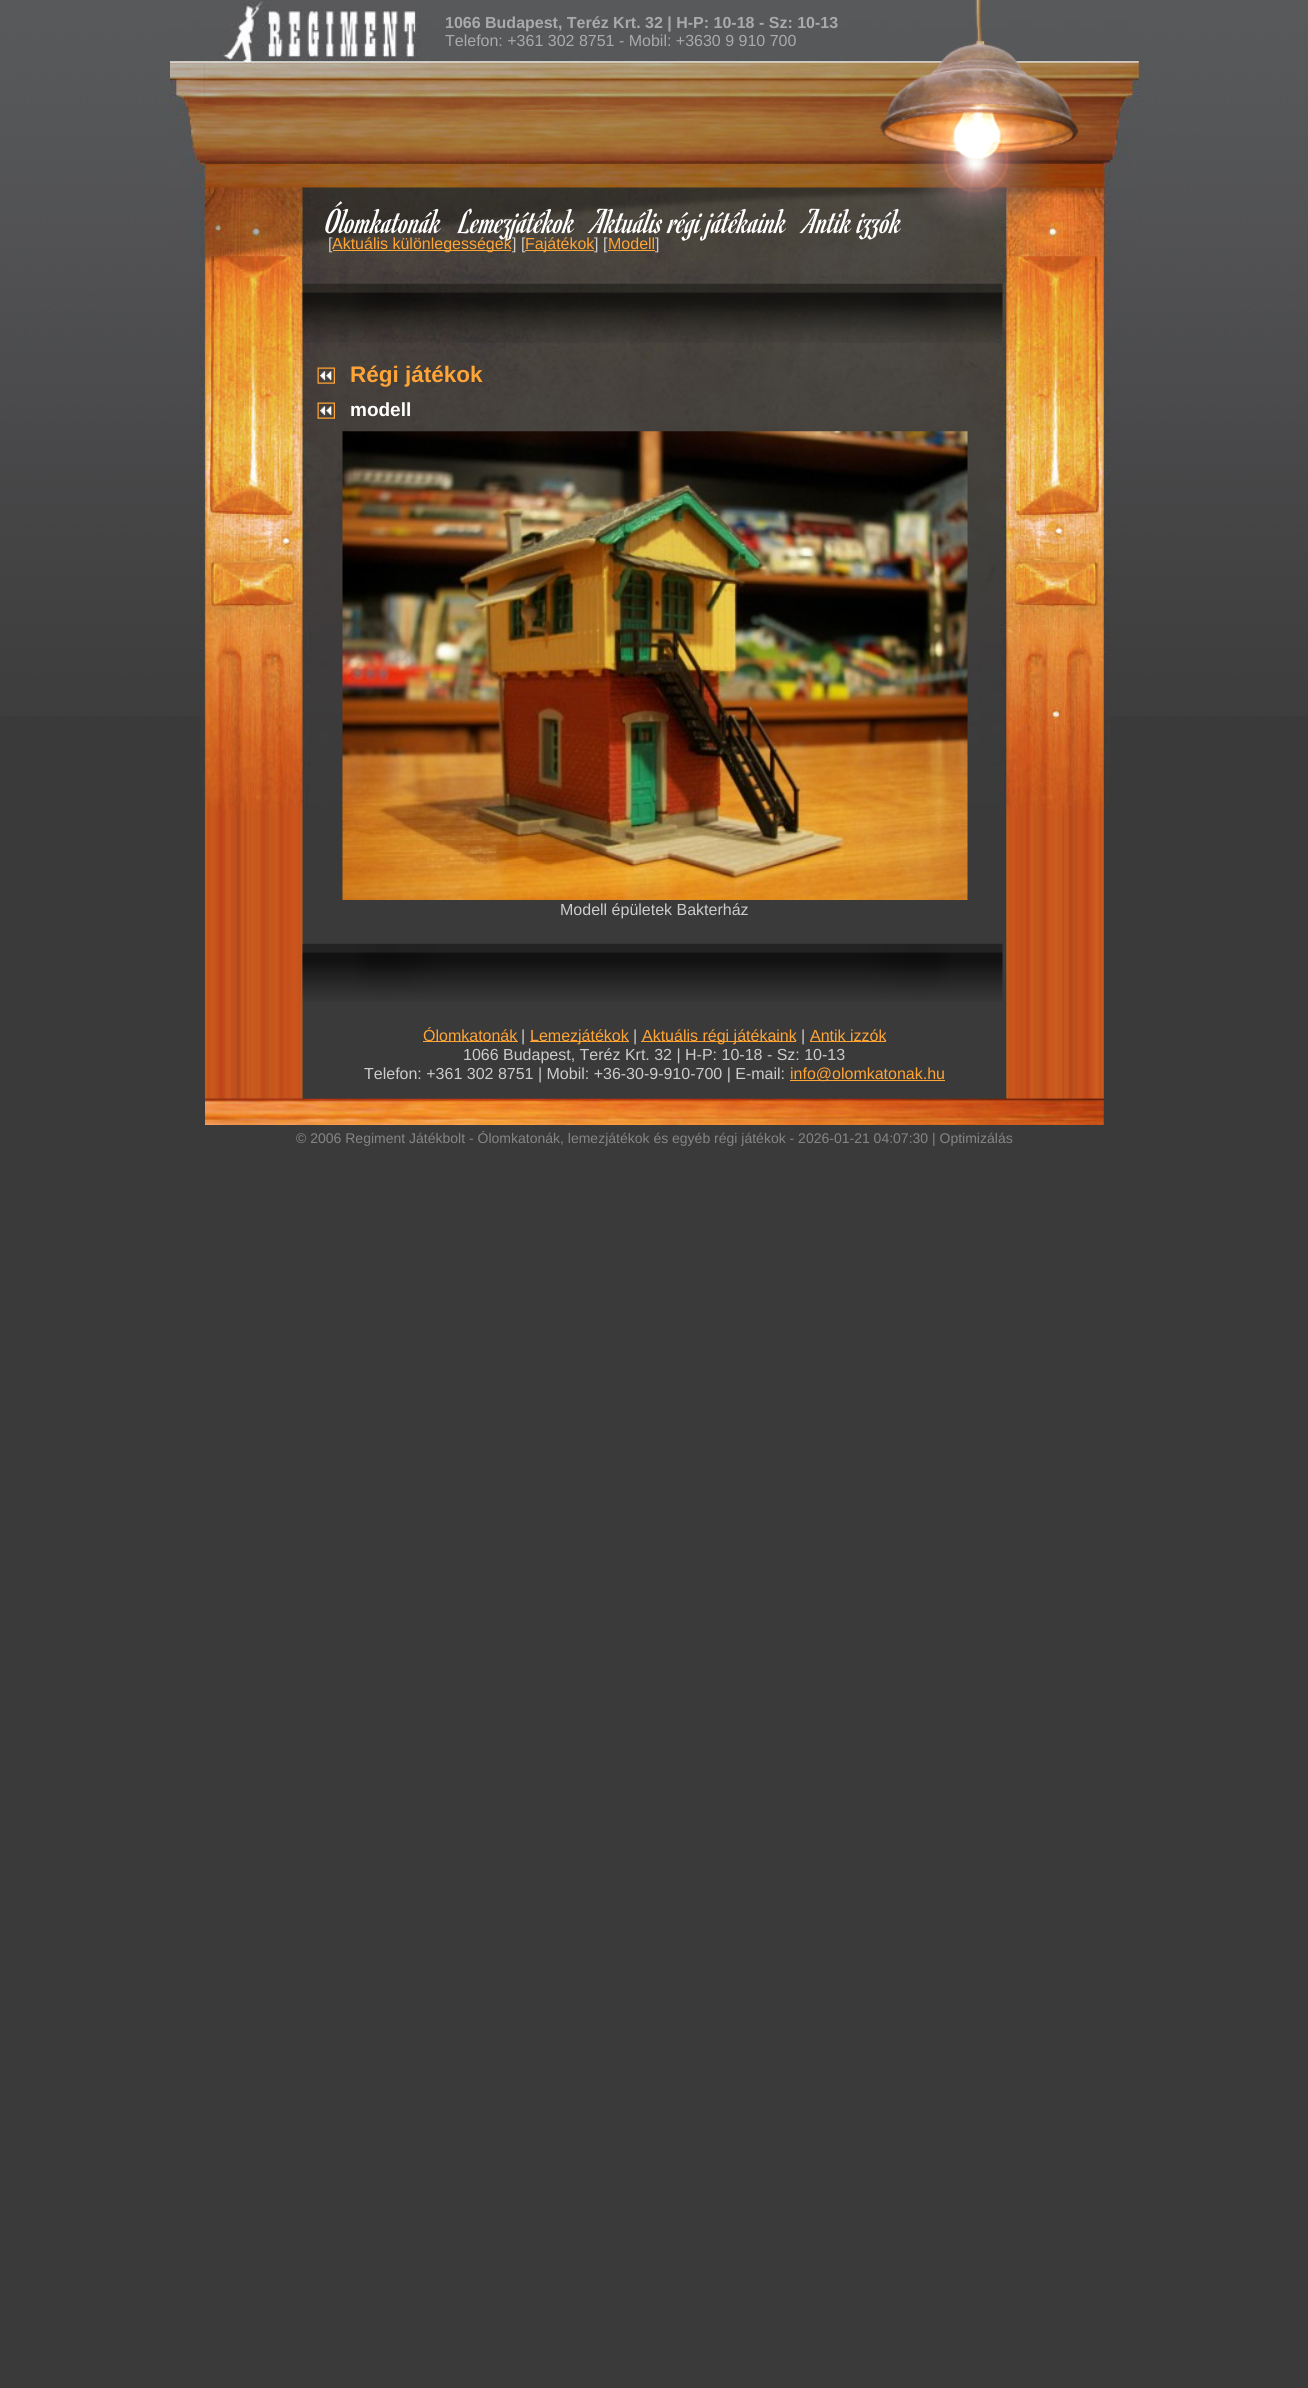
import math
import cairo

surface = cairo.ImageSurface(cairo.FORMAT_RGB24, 1308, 2388)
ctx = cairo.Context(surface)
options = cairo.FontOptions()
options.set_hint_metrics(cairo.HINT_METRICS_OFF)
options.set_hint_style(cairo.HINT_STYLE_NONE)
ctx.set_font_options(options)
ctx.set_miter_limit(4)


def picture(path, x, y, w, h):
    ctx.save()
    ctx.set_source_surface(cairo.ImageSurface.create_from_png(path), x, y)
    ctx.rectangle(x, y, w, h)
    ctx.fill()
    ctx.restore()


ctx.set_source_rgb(0.227, 0.227, 0.227)
ctx.paint()
picture("img1.png", 0, 0, 1308, 716)
picture("img7.png", 200, 256, 910, 554)
picture("img8.png", 302, 256, 705, 28)
picture("img2.png", 170, 0, 969, 257)
ctx.select_font_face("Liberation Sans", cairo.FONT_SLANT_NORMAL, cairo.FONT_WEIGHT_BOLD)
ctx.set_font_size(16)
ctx.set_source_rgb(0.667, 0.667, 0.667)
ctx.move_to(445, 28)
ctx.show_text("1066 Budapest, Teréz Krt. 32 | H-P: 10-18 - Sz: 10-13")
ctx.select_font_face("Liberation Sans")
ctx.move_to(445, 46)
ctx.show_text("Telefon: +361 302 8751 - Mobil: +3630 9 910 700")
picture("img5.png", 205, 162, 899, 102)
picture("img4.png", 900, 141, 147, 92)
picture("img3.png", 880, 0, 199, 160)
ctx.select_font_face("Romanesco")
ctx.set_font_size(36)
ctx.set_source_rgb(1, 1, 1)
ctx.move_to(326, 233)
ctx.show_text("Ólomkatonák")
ctx.move_to(460, 233)
ctx.show_text("Lemezjátékok")
ctx.move_to(593, 233)
ctx.show_text("Aktuális régi játékaink")
ctx.move_to(805, 233)
ctx.show_text("Antik izzók")
picture("img6.png", 204, 810, 900, 289)
ctx.select_font_face("Liberation Sans")
ctx.set_font_size(16)
ctx.set_source_rgb(0.8, 0.8, 0.8)
ctx.move_to(328, 249)
ctx.show_text("[")
ctx.set_source_rgb(1, 0.643, 0.212)
ctx.rectangle(333, 250, 178, 1)
ctx.fill()
ctx.move_to(332, 249)
ctx.show_text("Aktuális különlegességek")
ctx.set_source_rgb(0.8, 0.8, 0.8)
ctx.move_to(512, 249)
ctx.show_text("] [")
ctx.set_source_rgb(1, 0.643, 0.212)
ctx.rectangle(525, 250, 69, 1)
ctx.fill()
ctx.move_to(525, 249)
ctx.show_text("Fajátékok")
ctx.set_source_rgb(0.8, 0.8, 0.8)
ctx.move_to(594, 249)
ctx.show_text("] [")
ctx.set_source_rgb(1, 0.643, 0.212)
ctx.move_to(608, 249)
ctx.show_text("Modell")
ctx.rectangle(608, 250, 47, 1)
ctx.fill()
ctx.set_source_rgb(0.8, 0.8, 0.8)
ctx.move_to(655, 249)
ctx.show_text("]")
picture("img9.png", 302, 283, 701, 60)
picture("img10.png", 317, 367, 18, 17)
ctx.select_font_face("Liberation Sans", cairo.FONT_SLANT_NORMAL, cairo.FONT_WEIGHT_BOLD)
ctx.set_font_size(22.5)
ctx.set_source_rgb(1, 0.643, 0.212)
ctx.move_to(350, 382)
ctx.show_text("Régi játékok")
picture("img11.png", 317, 402, 18, 17)
ctx.set_font_size(19)
ctx.set_source_rgb(1, 1, 1)
ctx.move_to(350, 416)
ctx.show_text("modell")
picture("img12.png", 342, 431, 626, 469)
ctx.select_font_face("Liberation Sans")
ctx.set_font_size(16)
ctx.set_source_rgb(0.8, 0.8, 0.8)
ctx.move_to(560, 915)
ctx.show_text("Modell épületek Bakterház")
picture("img13.png", 302, 943, 701, 59)
ctx.set_source_rgb(1, 0.643, 0.212)
ctx.rectangle(423, 1041, 95, 1)
ctx.fill()
ctx.move_to(423, 1041)
ctx.show_text("Ólomkatonák")
ctx.set_source_rgb(0.8, 0.8, 0.8)
ctx.move_to(521, 1041)
ctx.show_text("|")
ctx.set_source_rgb(1, 0.643, 0.212)
ctx.rectangle(530, 1041, 99, 1)
ctx.fill()
ctx.move_to(530, 1041)
ctx.show_text("Lemezjátékok")
ctx.set_source_rgb(0.8, 0.8, 0.8)
ctx.move_to(633, 1041)
ctx.show_text("|")
ctx.set_source_rgb(1, 0.643, 0.212)
ctx.rectangle(641, 1041, 155, 1)
ctx.fill()
ctx.move_to(642, 1041)
ctx.show_text("Aktuális régi játékaink")
ctx.set_source_rgb(0.8, 0.8, 0.8)
ctx.move_to(801, 1041)
ctx.show_text("|")
ctx.set_source_rgb(1, 0.643, 0.212)
ctx.rectangle(810, 1041, 76, 1)
ctx.fill()
ctx.move_to(810, 1041)
ctx.show_text("Antik izzók")
ctx.set_source_rgb(0.8, 0.8, 0.8)
ctx.move_to(463, 1060)
ctx.show_text("1066 Budapest, Teréz Krt. 32 | H-P: 10-18 - Sz: 10-13")
ctx.move_to(364, 1079)
ctx.show_text("Telefon: +361 302 8751 | Mobil: +36-30-9-910-700 | E-mail:")
ctx.set_source_rgb(1, 0.643, 0.212)
ctx.rectangle(790, 1080, 155, 1)
ctx.fill()
ctx.move_to(790, 1079)
ctx.show_text("info@olomkatonak.hu")
picture("img14.png", 205, 1098, 899, 27)
ctx.set_font_size(14)
ctx.set_source_rgb(0.522, 0.522, 0.522)
ctx.move_to(296, 1143)
ctx.show_text("© 2006 Regiment Játékbolt - Ólomkatonák, lemezjátékok és egyéb régi játékok - 2026-01-21 04:07:30 | Optimizálás")
surface.write_to_png("page.png")
